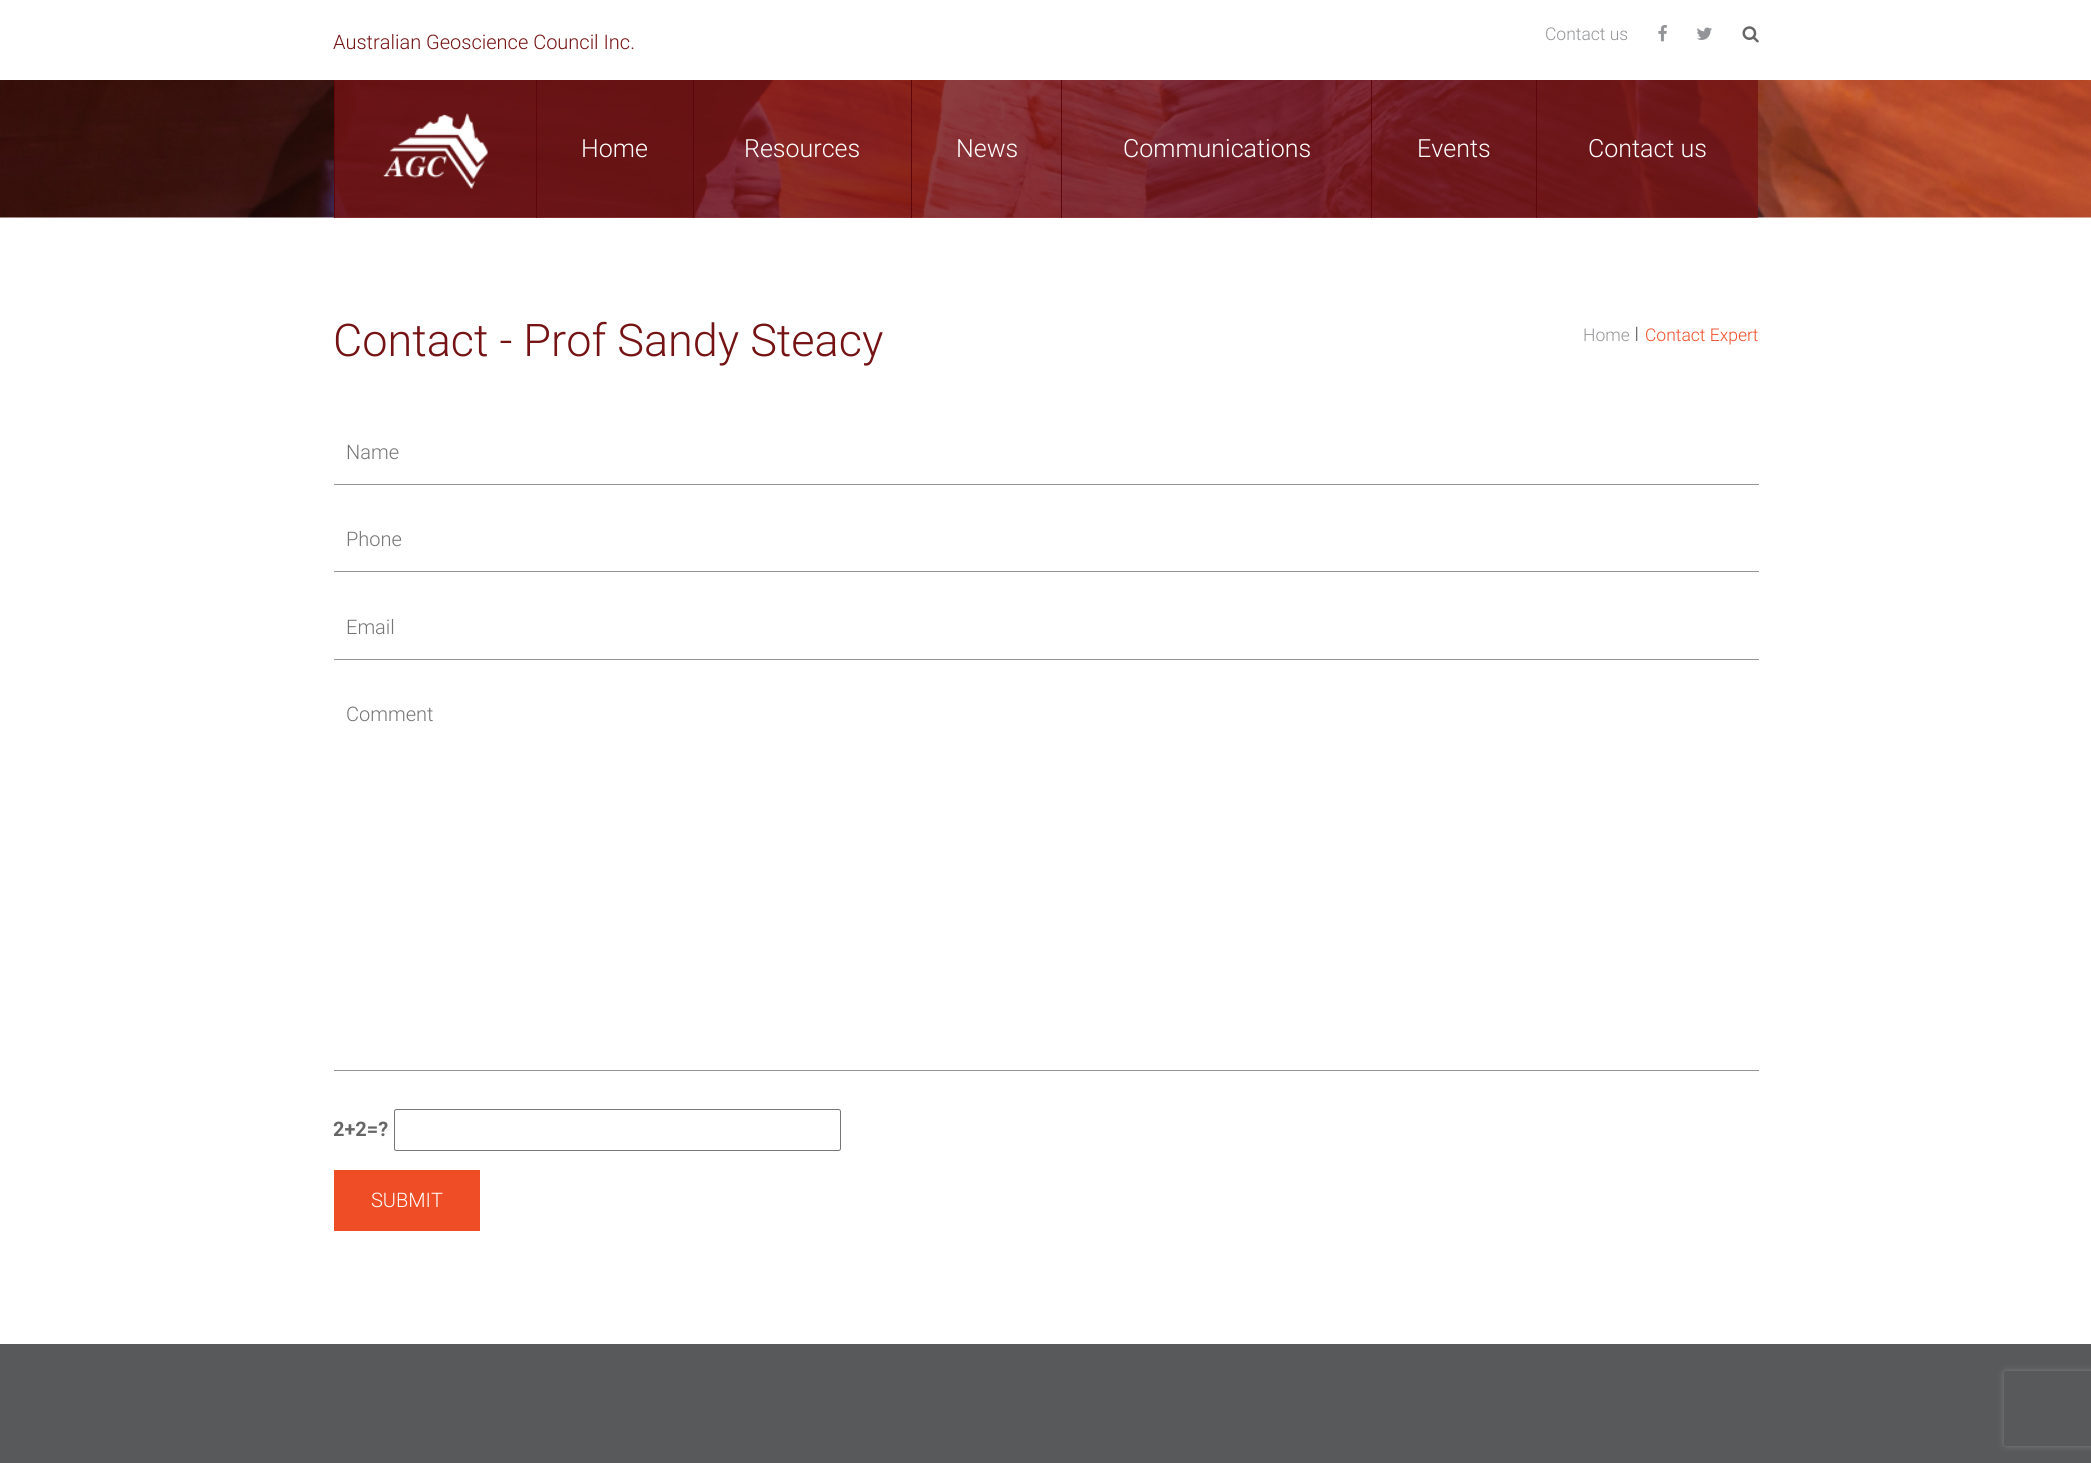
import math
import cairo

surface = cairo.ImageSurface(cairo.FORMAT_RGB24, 2091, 1463)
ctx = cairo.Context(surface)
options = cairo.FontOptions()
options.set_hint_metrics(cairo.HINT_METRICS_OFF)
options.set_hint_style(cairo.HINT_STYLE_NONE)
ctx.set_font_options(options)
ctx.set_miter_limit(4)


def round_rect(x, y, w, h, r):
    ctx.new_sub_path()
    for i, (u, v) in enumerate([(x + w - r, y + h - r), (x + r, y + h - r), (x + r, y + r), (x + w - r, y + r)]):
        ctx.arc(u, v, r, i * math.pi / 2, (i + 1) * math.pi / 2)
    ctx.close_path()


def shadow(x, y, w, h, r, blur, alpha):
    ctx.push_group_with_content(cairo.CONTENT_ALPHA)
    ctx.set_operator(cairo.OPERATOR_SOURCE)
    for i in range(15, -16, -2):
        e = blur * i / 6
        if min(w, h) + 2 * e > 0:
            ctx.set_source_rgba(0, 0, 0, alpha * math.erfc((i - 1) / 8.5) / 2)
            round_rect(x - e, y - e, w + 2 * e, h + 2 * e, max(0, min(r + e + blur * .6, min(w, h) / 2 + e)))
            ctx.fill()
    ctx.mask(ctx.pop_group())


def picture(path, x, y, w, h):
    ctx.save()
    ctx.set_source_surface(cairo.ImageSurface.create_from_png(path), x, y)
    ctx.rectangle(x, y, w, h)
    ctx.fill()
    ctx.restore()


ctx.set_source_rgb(1, 1, 1)
ctx.paint()
ctx.select_font_face("Roboto Light")
ctx.set_font_size(20)
ctx.set_source_rgb(0.459, 0.078, 0.082)
ctx.move_to(333, 49)
ctx.show_text("Australian Geoscience Council Inc.")
ctx.set_font_size(17.5)
ctx.set_source_rgb(0.573, 0.58, 0.592)
ctx.move_to(1545, 40)
ctx.show_text("Contact us")
picture("img1.png", 1658, 25, 9, 17)
picture("img2.png", 1697, 27, 15, 13)
picture("img3.png", 1742, 26, 17, 17)
picture("img4.png", 0, 80, 2091, 138)
ctx.set_source_rgba(0.459, 0.078, 0.082, 0.8)
ctx.rectangle(335, 80, 201, 138)
ctx.fill()
ctx.set_source_rgb(0.373, 0.024, 0.047)
ctx.rectangle(334, 80, 1, 138)
ctx.fill()
picture("img5.png", 383, 113, 105, 76)
ctx.set_source_rgba(0.459, 0.078, 0.082, 0.8)
ctx.rectangle(537, 80, 156, 138)
ctx.fill()
ctx.set_source_rgb(0.373, 0.024, 0.047)
ctx.rectangle(536, 80, 1, 138)
ctx.fill()
ctx.set_font_size(25)
ctx.set_source_rgb(1, 1, 1)
ctx.move_to(581, 157)
ctx.show_text("Home")
ctx.set_source_rgba(0.459, 0.078, 0.082, 0.8)
ctx.rectangle(694, 80, 217, 138)
ctx.fill()
ctx.set_source_rgb(0.373, 0.024, 0.047)
ctx.rectangle(693, 80, 1, 138)
ctx.fill()
ctx.set_source_rgb(1, 1, 1)
ctx.move_to(744, 157)
ctx.show_text("Resources")
ctx.set_source_rgba(0.459, 0.078, 0.082, 0.8)
ctx.rectangle(912, 80, 149, 138)
ctx.fill()
ctx.set_source_rgb(0.373, 0.024, 0.047)
ctx.rectangle(911, 80, 1, 138)
ctx.fill()
ctx.set_source_rgb(1, 1, 1)
ctx.move_to(956, 157)
ctx.show_text("News")
ctx.set_source_rgba(0.459, 0.078, 0.082, 0.8)
ctx.rectangle(1062, 80, 309, 138)
ctx.fill()
ctx.set_source_rgb(0.373, 0.024, 0.047)
ctx.rectangle(1061, 80, 1, 138)
ctx.fill()
ctx.set_source_rgb(1, 1, 1)
ctx.move_to(1123, 157)
ctx.show_text("Communications")
ctx.set_source_rgba(0.459, 0.078, 0.082, 0.8)
ctx.rectangle(1372, 80, 164, 138)
ctx.fill()
ctx.set_source_rgb(0.373, 0.024, 0.047)
ctx.rectangle(1371, 80, 1, 138)
ctx.fill()
ctx.set_source_rgb(1, 1, 1)
ctx.move_to(1417, 157)
ctx.show_text("Events")
ctx.set_source_rgba(0.459, 0.078, 0.082, 0.8)
ctx.rectangle(1537, 80, 221, 138)
ctx.fill()
ctx.set_source_rgb(0.373, 0.024, 0.047)
ctx.rectangle(1536, 80, 1, 138)
ctx.fill()
ctx.set_source_rgb(1, 1, 1)
ctx.move_to(1588, 157)
ctx.show_text("Contact us")
ctx.set_font_size(45)
ctx.set_source_rgb(0.459, 0.078, 0.082)
ctx.move_to(333, 356)
ctx.show_text("Contact - Prof Sandy Steacy")
ctx.set_font_size(17.5)
ctx.set_source_rgb(0.573, 0.58, 0.592)
ctx.move_to(1583, 341)
ctx.show_text("Home")
ctx.set_font_size(20)
ctx.set_source_rgb(0.4, 0.4, 0.4)
ctx.move_to(1634, 341)
ctx.show_text("I")
ctx.set_font_size(17.5)
ctx.set_source_rgb(0.933, 0.302, 0.145)
ctx.move_to(1645, 341)
ctx.show_text("Contact Expert")
ctx.set_source_rgb(0.573, 0.58, 0.592)
ctx.rectangle(334, 484, 1425, 1)
ctx.fill()
ctx.set_font_size(20)
ctx.set_source_rgb(0.459, 0.459, 0.459)
ctx.move_to(346, 459)
ctx.show_text("Name")
ctx.set_source_rgb(0.573, 0.58, 0.592)
ctx.rectangle(334, 571, 1425, 1)
ctx.fill()
ctx.set_source_rgb(0.459, 0.459, 0.459)
ctx.move_to(346, 546)
ctx.show_text("Phone")
ctx.set_source_rgb(0.573, 0.58, 0.592)
ctx.rectangle(334, 659, 1425, 1)
ctx.fill()
ctx.set_source_rgb(0.459, 0.459, 0.459)
ctx.move_to(346, 634)
ctx.show_text("Email")
ctx.set_source_rgb(0.573, 0.58, 0.592)
ctx.rectangle(334, 1070, 1425, 1)
ctx.fill()
ctx.set_source_rgb(0.459, 0.459, 0.459)
ctx.move_to(346, 721)
ctx.show_text("Comment")
ctx.select_font_face("Roboto", cairo.FONT_SLANT_NORMAL, cairo.FONT_WEIGHT_BOLD)
ctx.set_source_rgb(0.4, 0.4, 0.4)
ctx.move_to(333, 1136)
ctx.show_text("2+2=?")
round_rect(394.5, 1109.5, 446, 41, 2)
ctx.set_source_rgb(0.463, 0.463, 0.463)
ctx.set_line_width(1)
ctx.stroke()
ctx.set_source_rgb(0.933, 0.302, 0.145)
ctx.rectangle(334, 1170, 146, 61)
ctx.fill()
ctx.select_font_face("Roboto Light")
ctx.set_source_rgb(1, 1, 1)
ctx.move_to(371, 1207)
ctx.show_text("SUBMIT")
ctx.set_source_rgb(0.345, 0.349, 0.357)
ctx.rectangle(0, 1344, 2091, 119)
ctx.fill()
ctx.save()
ctx.set_fill_rule(cairo.FILL_RULE_EVEN_ODD)
ctx.new_path()
ctx.move_to(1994, 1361)
ctx.line_to(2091, 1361)
ctx.line_to(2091, 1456)
ctx.line_to(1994, 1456)
ctx.close_path()
ctx.move_to(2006.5, 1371)
ctx.line_to(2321.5, 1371)
ctx.curve_to(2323, 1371, 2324, 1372, 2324, 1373.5)
ctx.line_to(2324, 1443.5)
ctx.curve_to(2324, 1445, 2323, 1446, 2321.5, 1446)
ctx.line_to(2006.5, 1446)
ctx.curve_to(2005, 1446, 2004, 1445, 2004, 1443.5)
ctx.line_to(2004, 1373.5)
ctx.curve_to(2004, 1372, 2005, 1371, 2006.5, 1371)
ctx.close_path()
ctx.clip()
ctx.set_source_rgb(0.502, 0.502, 0.502)
shadow(2004, 1371, 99, 75, 2.5, 3, 1)
ctx.restore()
surface.write_to_png("page.png")
